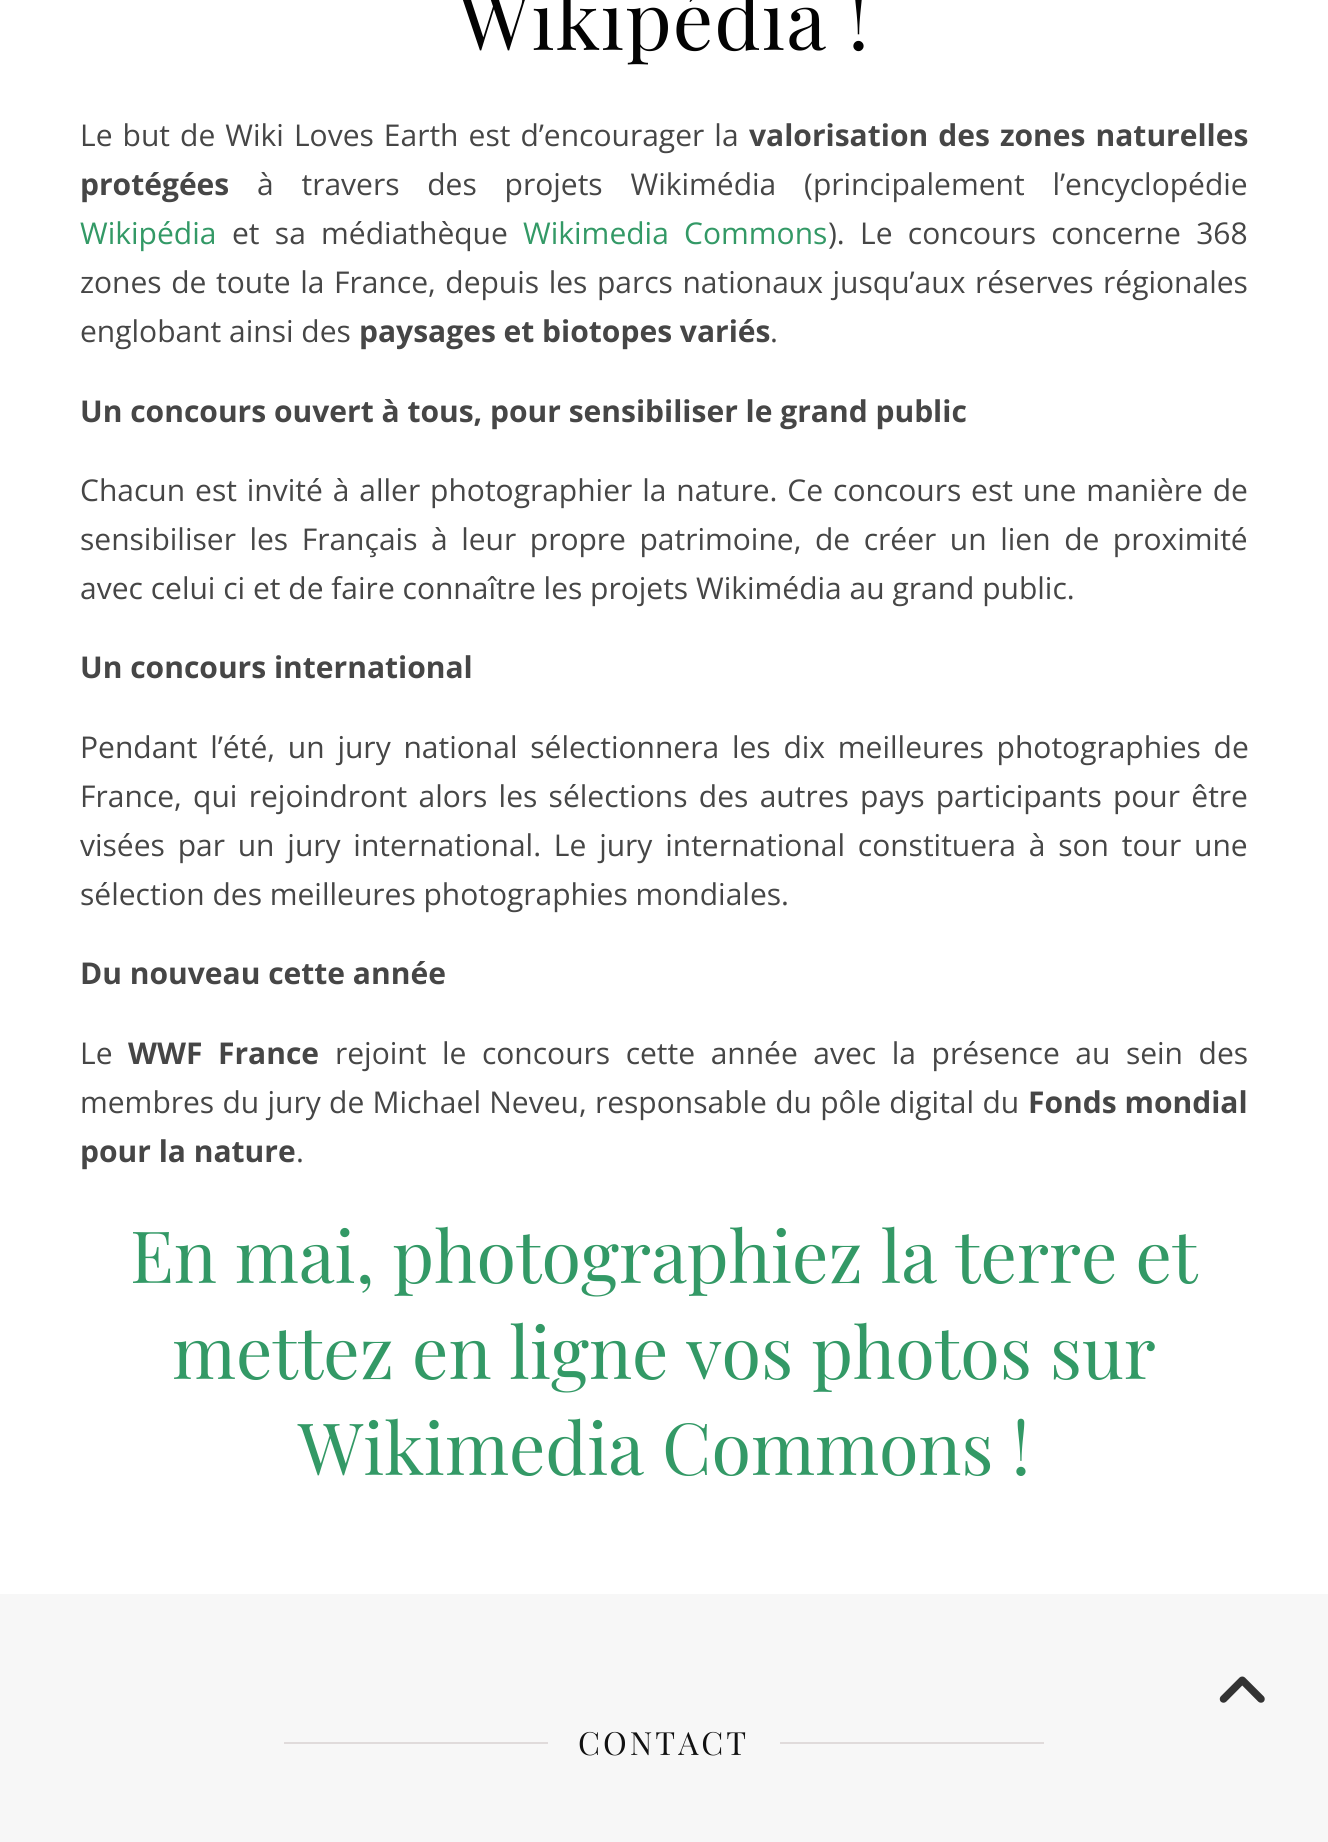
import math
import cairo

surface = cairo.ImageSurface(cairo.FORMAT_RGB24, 1328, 1842)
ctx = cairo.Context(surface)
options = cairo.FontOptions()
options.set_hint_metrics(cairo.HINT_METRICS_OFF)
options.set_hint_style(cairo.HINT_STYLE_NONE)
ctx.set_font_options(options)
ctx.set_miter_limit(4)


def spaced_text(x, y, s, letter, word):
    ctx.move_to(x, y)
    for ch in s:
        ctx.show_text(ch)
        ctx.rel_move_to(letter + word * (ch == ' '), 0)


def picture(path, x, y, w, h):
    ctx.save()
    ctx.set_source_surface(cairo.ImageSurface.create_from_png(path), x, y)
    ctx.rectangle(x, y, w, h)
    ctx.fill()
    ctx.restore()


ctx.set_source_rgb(1, 1, 1)
ctx.paint()
ctx.select_font_face("Playfair Display")
ctx.set_font_size(80)
ctx.set_source_rgb(0.012, 0.012, 0.012)
spaced_text(458, 50, "Wikipédia !", 1, 0)
ctx.select_font_face("Open Sans")
ctx.set_font_size(30)
ctx.set_source_rgb(0.275, 0.275, 0.275)
spaced_text(80, 146, "Le but de Wiki Loves Earth est d’encourager la", 0, 2.25)
ctx.select_font_face("Open Sans", cairo.FONT_SLANT_NORMAL, cairo.FONT_WEIGHT_BOLD)
spaced_text(749, 146, "valorisation des zones naturelles", 0, 2.25)
ctx.move_to(80, 195)
ctx.show_text("protégées")
ctx.select_font_face("Open Sans")
spaced_text(257, 195, "à travers des projets Wikimédia (principalement l’encyclopédie", 0, 20)
ctx.set_source_rgb(0.2, 0.6, 0.4)
ctx.move_to(80, 244)
ctx.show_text("Wikipédia")
ctx.set_source_rgb(0.275, 0.275, 0.275)
spaced_text(232, 244, "et sa médiathèque", 0, 7.5)
ctx.set_source_rgb(0.2, 0.6, 0.4)
spaced_text(523, 244, "Wikimedia Commons", 0, 7.5)
ctx.set_source_rgb(0.275, 0.275, 0.275)
spaced_text(828, 244, "). Le concours concerne 368", 0, 7.5)
spaced_text(80, 293, "zones de toute la France, depuis les parcs nationaux jusqu’aux réserves régionales", 0, 1.75)
ctx.move_to(80, 342)
ctx.show_text("englobant ainsi des")
ctx.select_font_face("Open Sans", cairo.FONT_SLANT_NORMAL, cairo.FONT_WEIGHT_BOLD)
ctx.move_to(359, 342)
ctx.show_text("paysages et biotopes variés")
ctx.select_font_face("Open Sans")
ctx.move_to(770, 342)
ctx.show_text(".")
ctx.select_font_face("Open Sans", cairo.FONT_SLANT_NORMAL, cairo.FONT_WEIGHT_BOLD)
ctx.move_to(80, 422)
ctx.show_text("Un concours ouvert à tous, pour sensibiliser le grand public")
ctx.select_font_face("Open Sans")
spaced_text(80, 501, "Chacun est invité à aller photographier la nature. Ce concours est une manière de", 0, 2.1)
spaced_text(80, 550, "sensibiliser les Français à leur propre patrimoine, de créer un lien de proximité", 0, 5.75)
ctx.move_to(80, 599)
ctx.show_text("avec celui ci et de faire connaître les projets Wikimédia au grand public.")
ctx.select_font_face("Open Sans", cairo.FONT_SLANT_NORMAL, cairo.FONT_WEIGHT_BOLD)
ctx.move_to(80, 678)
ctx.show_text("Un concours international")
ctx.select_font_face("Open Sans")
spaced_text(80, 758, "Pendant l’été, un jury national sélectionnera les dix meilleures photographies de", 0, 5)
spaced_text(80, 807, "France, qui rejoindront alors les sélections des autres pays participants pour être", 0, 3.5)
spaced_text(80, 856, "visées par un jury international. Le jury international constituera à son tour une", 0, 5)
ctx.move_to(80, 905)
ctx.show_text("sélection des meilleures photographies mondiales.")
ctx.select_font_face("Open Sans", cairo.FONT_SLANT_NORMAL, cairo.FONT_WEIGHT_BOLD)
ctx.move_to(80, 984)
ctx.show_text("Du nouveau cette année")
ctx.select_font_face("Open Sans")
ctx.move_to(80, 1064)
ctx.show_text("Le")
ctx.select_font_face("Open Sans", cairo.FONT_SLANT_NORMAL, cairo.FONT_WEIGHT_BOLD)
spaced_text(128, 1064, "WWF France", 0, 7.75)
ctx.select_font_face("Open Sans")
spaced_text(335, 1064, "rejoint le concours cette année avec la présence au sein des", 0, 7.75)
spaced_text(80, 1113, "membres du jury de Michael Neveu, responsable du pôle digital du", 0, 0.5)
ctx.select_font_face("Open Sans", cairo.FONT_SLANT_NORMAL, cairo.FONT_WEIGHT_BOLD)
ctx.move_to(1028, 1113)
ctx.show_text("Fonds mondial")
ctx.move_to(80, 1162)
ctx.show_text("pour la nature")
ctx.select_font_face("Open Sans")
ctx.move_to(296, 1162)
ctx.show_text(".")
ctx.select_font_face("Playfair Display")
ctx.set_font_size(72)
ctx.set_source_rgb(0.2, 0.6, 0.4)
ctx.move_to(130, 1283)
ctx.show_text("En mai, photographiez la terre et")
ctx.move_to(172, 1379)
ctx.show_text("mettez en ligne vos photos sur")
ctx.move_to(298, 1475)
ctx.show_text("Wikimedia Commons !")
ctx.set_source_rgb(0.965, 0.965, 0.965)
ctx.rectangle(0, 1594, 1328, 248)
ctx.fill()
picture("img1.png", 1219, 1676, 46, 27)
ctx.set_source_rgb(0.878, 0.859, 0.859)
ctx.rectangle(284, 1742, 264, 2)
ctx.fill()
ctx.set_font_size(32)
ctx.set_source_rgb(0.067, 0.067, 0.067)
spaced_text(578, 1755, "CONTACT", 3, 0)
ctx.set_source_rgb(0.878, 0.859, 0.859)
ctx.rectangle(780, 1742, 264, 2)
ctx.fill()
surface.write_to_png("page.png")
